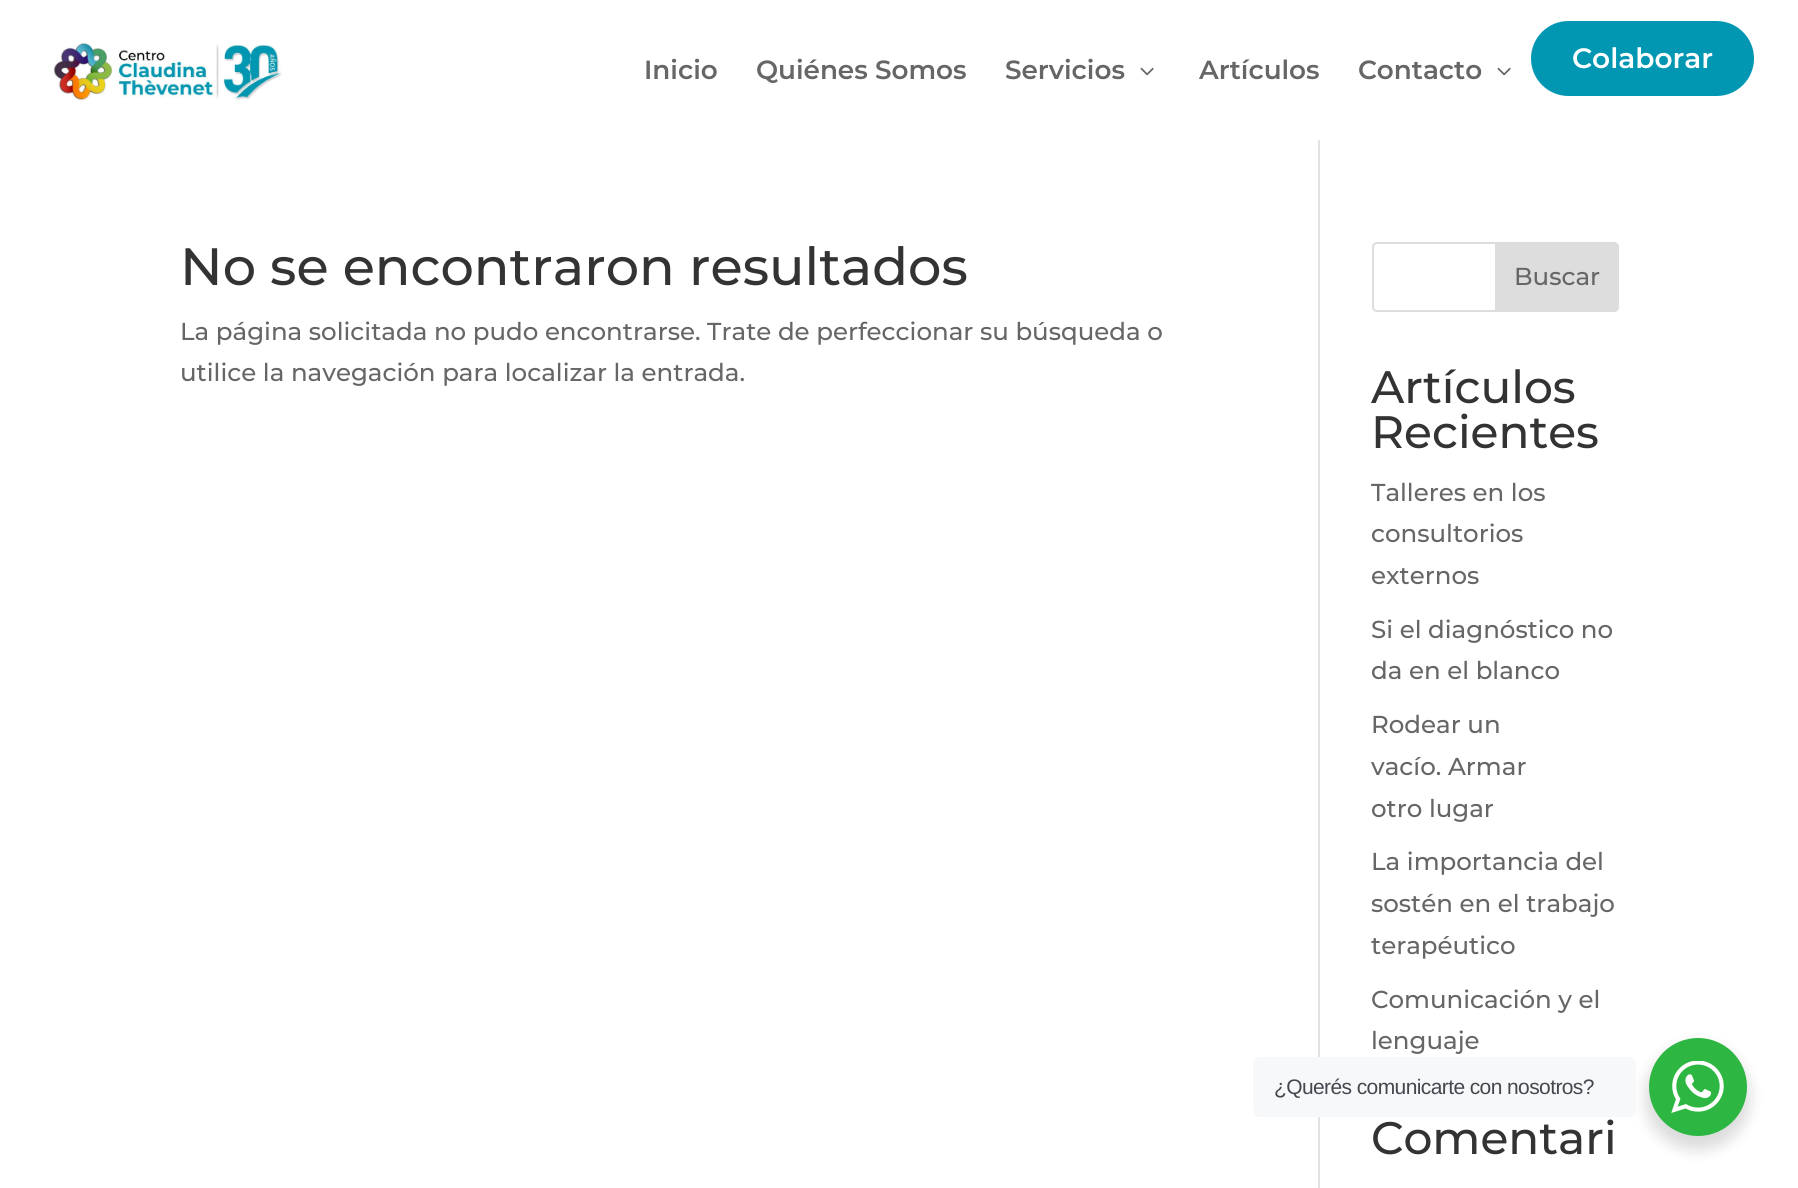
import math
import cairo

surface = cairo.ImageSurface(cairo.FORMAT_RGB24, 1798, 1188)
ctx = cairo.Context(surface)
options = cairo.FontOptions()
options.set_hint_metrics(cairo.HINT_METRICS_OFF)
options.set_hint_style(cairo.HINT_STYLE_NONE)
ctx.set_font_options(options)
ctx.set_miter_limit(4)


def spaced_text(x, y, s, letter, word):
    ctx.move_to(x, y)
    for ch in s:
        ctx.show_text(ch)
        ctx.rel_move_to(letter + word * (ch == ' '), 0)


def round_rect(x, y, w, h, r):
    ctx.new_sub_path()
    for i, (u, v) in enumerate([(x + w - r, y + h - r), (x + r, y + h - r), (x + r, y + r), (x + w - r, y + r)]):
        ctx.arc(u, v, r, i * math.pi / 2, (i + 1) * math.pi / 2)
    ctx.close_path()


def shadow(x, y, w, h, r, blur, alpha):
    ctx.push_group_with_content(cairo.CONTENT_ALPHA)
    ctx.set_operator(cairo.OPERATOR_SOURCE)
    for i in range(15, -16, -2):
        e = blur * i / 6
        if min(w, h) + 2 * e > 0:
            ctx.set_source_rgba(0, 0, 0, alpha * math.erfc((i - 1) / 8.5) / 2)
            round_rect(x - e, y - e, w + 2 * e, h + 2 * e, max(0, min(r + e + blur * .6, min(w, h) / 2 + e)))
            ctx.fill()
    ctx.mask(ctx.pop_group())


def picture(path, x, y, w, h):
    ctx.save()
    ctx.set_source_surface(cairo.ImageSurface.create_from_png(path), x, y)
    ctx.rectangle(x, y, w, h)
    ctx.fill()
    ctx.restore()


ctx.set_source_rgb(1, 1, 1)
ctx.paint()
picture("img1.png", 53, 42, 229, 59)
ctx.select_font_face("Montserrat SemiBold")
ctx.set_font_size(26.25)
ctx.set_source_rgb(0.4, 0.4, 0.4)
ctx.move_to(644, 79)
ctx.show_text("Inicio")
ctx.move_to(756, 79)
ctx.show_text("Quiénes Somos")
ctx.move_to(1005, 79)
ctx.show_text("Servicios")
picture("img2.png", 1140, 67, 14, 9)
ctx.move_to(1199, 79)
ctx.show_text("Artículos")
ctx.move_to(1358, 79)
ctx.show_text("Contacto")
picture("img2.png", 1497, 67, 14, 9)
ctx.set_source_rgb(0.004, 0.592, 0.702)
round_rect(1533.5, 23.5, 218, 70, 35)
ctx.fill_preserve()
ctx.set_line_width(5)
ctx.stroke()
ctx.set_font_size(28)
ctx.set_source_rgb(1, 1, 1)
ctx.move_to(1572, 68)
ctx.show_text("Colaborar")
ctx.set_source_rgb(0.886, 0.886, 0.886)
ctx.rectangle(1318, 140, 2, 1048)
ctx.fill()
ctx.select_font_face("Montserrat Medium")
ctx.set_font_size(52.5)
ctx.set_source_rgb(0.2, 0.2, 0.2)
ctx.move_to(180, 285)
ctx.show_text("No se encontraron resultados")
ctx.set_font_size(24.5)
ctx.set_source_rgb(0.4, 0.4, 0.4)
ctx.move_to(180, 340)
ctx.show_text("La página solicitada no pudo encontrarse. Trate de perfeccionar su búsqueda o")
ctx.move_to(180, 381)
ctx.show_text("utilice la navegación para localizar la entrada.")
round_rect(1373, 243, 245, 68, 4)
ctx.set_source_rgb(0.867, 0.867, 0.867)
ctx.set_line_width(2)
ctx.stroke()
ctx.new_path()
ctx.move_to(1496, 243)
ctx.line_to(1614, 243)
ctx.curve_to(1616, 243, 1618, 245, 1618, 247)
ctx.line_to(1618, 307)
ctx.curve_to(1618, 309, 1616, 311, 1614, 311)
ctx.line_to(1496, 311)
ctx.close_path()
ctx.fill_preserve()
ctx.stroke()
ctx.set_source_rgb(0.4, 0.4, 0.4)
ctx.move_to(1514, 285)
ctx.show_text("Buscar")
ctx.set_font_size(45.5)
ctx.set_source_rgb(0.2, 0.2, 0.2)
ctx.move_to(1371, 403)
ctx.show_text("Artículos")
ctx.move_to(1371, 448)
ctx.show_text("Recientes")
ctx.set_font_size(24.5)
ctx.set_source_rgb(0.4, 0.4, 0.4)
ctx.move_to(1371, 501)
ctx.show_text("Talleres en los")
ctx.move_to(1371, 542)
ctx.show_text("consultorios")
ctx.move_to(1371, 584)
ctx.show_text("externos")
ctx.move_to(1371, 638)
ctx.show_text("Si el diagnóstico no")
ctx.move_to(1371, 679)
ctx.show_text("da en el blanco")
ctx.move_to(1371, 733)
ctx.show_text("Rodear un")
ctx.move_to(1371, 775)
ctx.show_text("vacío. Armar")
ctx.move_to(1371, 817)
ctx.show_text("otro lugar")
ctx.move_to(1371, 870)
ctx.show_text("La importancia del")
ctx.move_to(1371, 912)
ctx.show_text("sostén en el trabajo")
ctx.move_to(1371, 954)
ctx.show_text("terapéutico")
ctx.move_to(1371, 1008)
ctx.show_text("Comunicación y el")
ctx.move_to(1371, 1049)
ctx.show_text("lenguaje")
ctx.set_font_size(45.5)
ctx.set_source_rgb(0.2, 0.2, 0.2)
ctx.move_to(1371, 1154)
ctx.show_text("Comentari")
ctx.set_source_rgb(0, 0, 0)
shadow(1645, 1045, 105, 105, 52.5, 7, 0.14)
ctx.set_source_rgb(0.961, 0.969, 0.976)
round_rect(1253, 1057, 383, 60, 7)
ctx.fill()
ctx.select_font_face("Liberation Sans")
ctx.set_font_size(21)
ctx.set_source_rgb(0.263, 0.278, 0.306)
spaced_text(1274, 1094, "¿Querés comunicarte con nosotros?", -0.6, 0)
ctx.set_source_rgb(0.176, 0.718, 0.259)
ctx.new_path()
ctx.arc(1698, 1087, 49, 0, 2 * math.pi)
ctx.fill()
picture("img3.png", 1671, 1061, 53, 52)
surface.write_to_png("page.png")
